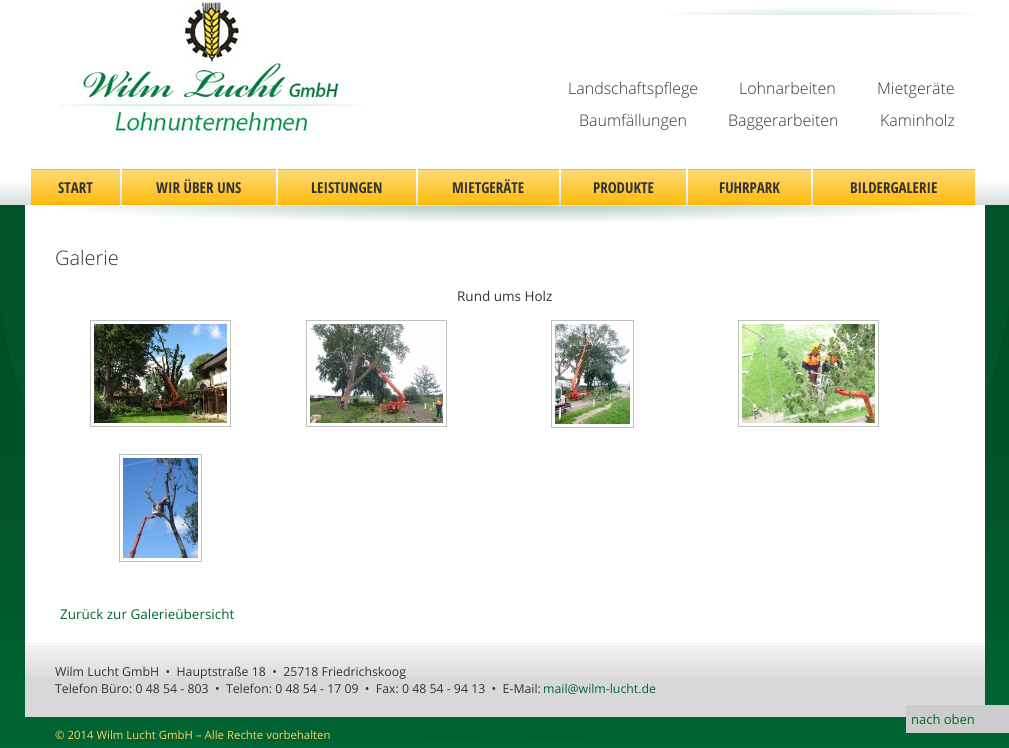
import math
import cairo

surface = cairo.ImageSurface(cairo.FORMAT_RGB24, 1009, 748)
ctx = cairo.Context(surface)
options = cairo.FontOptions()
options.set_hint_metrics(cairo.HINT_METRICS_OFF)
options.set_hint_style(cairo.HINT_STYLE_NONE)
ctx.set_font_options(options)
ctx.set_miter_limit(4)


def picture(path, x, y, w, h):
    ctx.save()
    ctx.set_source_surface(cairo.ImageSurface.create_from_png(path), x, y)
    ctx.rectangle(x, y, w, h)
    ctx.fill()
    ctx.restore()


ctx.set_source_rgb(0, 0.4, 0.204)
ctx.paint()
picture("img1.png", 0, 205, 1009, 536)
picture("img2.png", 0, 0, 1009, 205)
picture("img3.png", 55, 0, 316, 138)
picture("img4.png", 669, 8, 307, 7)
ctx.select_font_face("Open Sans Light")
ctx.set_font_size(16)
ctx.set_source_rgb(0.2, 0.2, 0.2)
ctx.move_to(568, 94)
ctx.show_text("Landschaftspflege")
ctx.move_to(739, 94)
ctx.show_text("Lohnarbeiten")
ctx.move_to(877, 94)
ctx.show_text("Mietgeräte")
ctx.move_to(579, 126)
ctx.show_text("Baumfällungen")
ctx.move_to(728, 126)
ctx.show_text("Baggerarbeiten")
ctx.move_to(880, 126)
ctx.show_text("Kaminholz")
picture("img5.png", 31, 169, 89, 36)
ctx.select_font_face("Open Sans Condensed", cairo.FONT_SLANT_NORMAL, cairo.FONT_WEIGHT_BOLD)
ctx.set_font_size(15)
ctx.move_to(58, 193)
ctx.show_text("START")
picture("img6.png", 122, 169, 154, 36)
ctx.move_to(156, 193)
ctx.show_text("WIR ÜBER UNS")
picture("img7.png", 278, 169, 138, 36)
ctx.move_to(311, 193)
ctx.show_text("LEISTUNGEN")
picture("img8.png", 418, 169, 141, 36)
ctx.move_to(452, 193)
ctx.show_text("MIETGERÄTE")
picture("img9.png", 561, 169, 125, 36)
ctx.move_to(593, 193)
ctx.show_text("PRODUKTE")
picture("img10.png", 688, 169, 123, 36)
ctx.move_to(719, 193)
ctx.show_text("FUHRPARK")
picture("img11.png", 813, 169, 162, 36)
ctx.move_to(850, 193)
ctx.show_text("BILDERGALERIE")
ctx.set_source_rgb(1, 1, 1)
ctx.rectangle(25, 205, 960, 438)
ctx.fill()
picture("img12.png", 57, 205, 899, 17)
ctx.select_font_face("Open Sans Light")
ctx.set_font_size(20)
ctx.set_source_rgb(0.2, 0.2, 0.2)
ctx.move_to(55, 265)
ctx.show_text("Galerie")
ctx.select_font_face("Open Sans")
ctx.set_font_size(13.5)
ctx.move_to(457, 301)
ctx.show_text("Rund ums Holz")
ctx.rectangle(90.5, 320.5, 140, 106)
ctx.set_source_rgb(0.753, 0.753, 0.753)
ctx.set_line_width(1)
ctx.stroke()
picture("img13.png", 94, 324, 133, 99)
ctx.rectangle(306.5, 320.5, 140, 106)
ctx.stroke()
picture("img14.png", 310, 324, 133, 99)
ctx.rectangle(551.5, 320.5, 82, 107)
ctx.stroke()
picture("img15.png", 555, 324, 75, 100)
ctx.rectangle(738.5, 320.5, 140, 106)
ctx.stroke()
picture("img16.png", 742, 324, 133, 99)
ctx.rectangle(119.5, 454.5, 82, 107)
ctx.stroke()
picture("img17.png", 123, 458, 75, 100)
ctx.set_source_rgb(0, 0.4, 0.2)
ctx.move_to(60, 619)
ctx.show_text("Zurück zur Galerieübersicht")
ctx.set_source_rgb(0.847, 0.847, 0.847)
ctx.rectangle(25, 677, 960, 40)
ctx.fill()
picture("img18.png", 25, 643, 960, 34)
ctx.set_font_size(12.3)
ctx.set_source_rgb(0.2, 0.2, 0.2)
ctx.move_to(55, 676)
ctx.show_text("Wilm Lucht GmbH  •  Hauptstraße 18  •  25718 Friedrichskoog")
ctx.move_to(55, 693)
ctx.show_text("Telefon Büro: 0 48 54 - 803  •  Telefon: 0 48 54 - 17 09  •  Fax: 0 48 54 - 94 13  •  E-Mail:")
ctx.set_source_rgb(0, 0.4, 0.2)
ctx.move_to(543, 693)
ctx.show_text("mail@wilm-lucht.de")
ctx.set_font_size(11.4)
ctx.set_source_rgb(0.992, 0.824, 0.373)
ctx.move_to(55, 739)
ctx.show_text("© 2014 Wilm Lucht GmbH – Alle Rechte vorbehalten")
ctx.set_source_rgb(0.8, 0.8, 0.8)
ctx.rectangle(906, 705, 103, 28)
ctx.fill()
ctx.set_font_size(13)
ctx.set_source_rgb(0, 0.4, 0.2)
ctx.move_to(911, 724)
ctx.show_text("nach oben")
surface.write_to_png("page.png")
